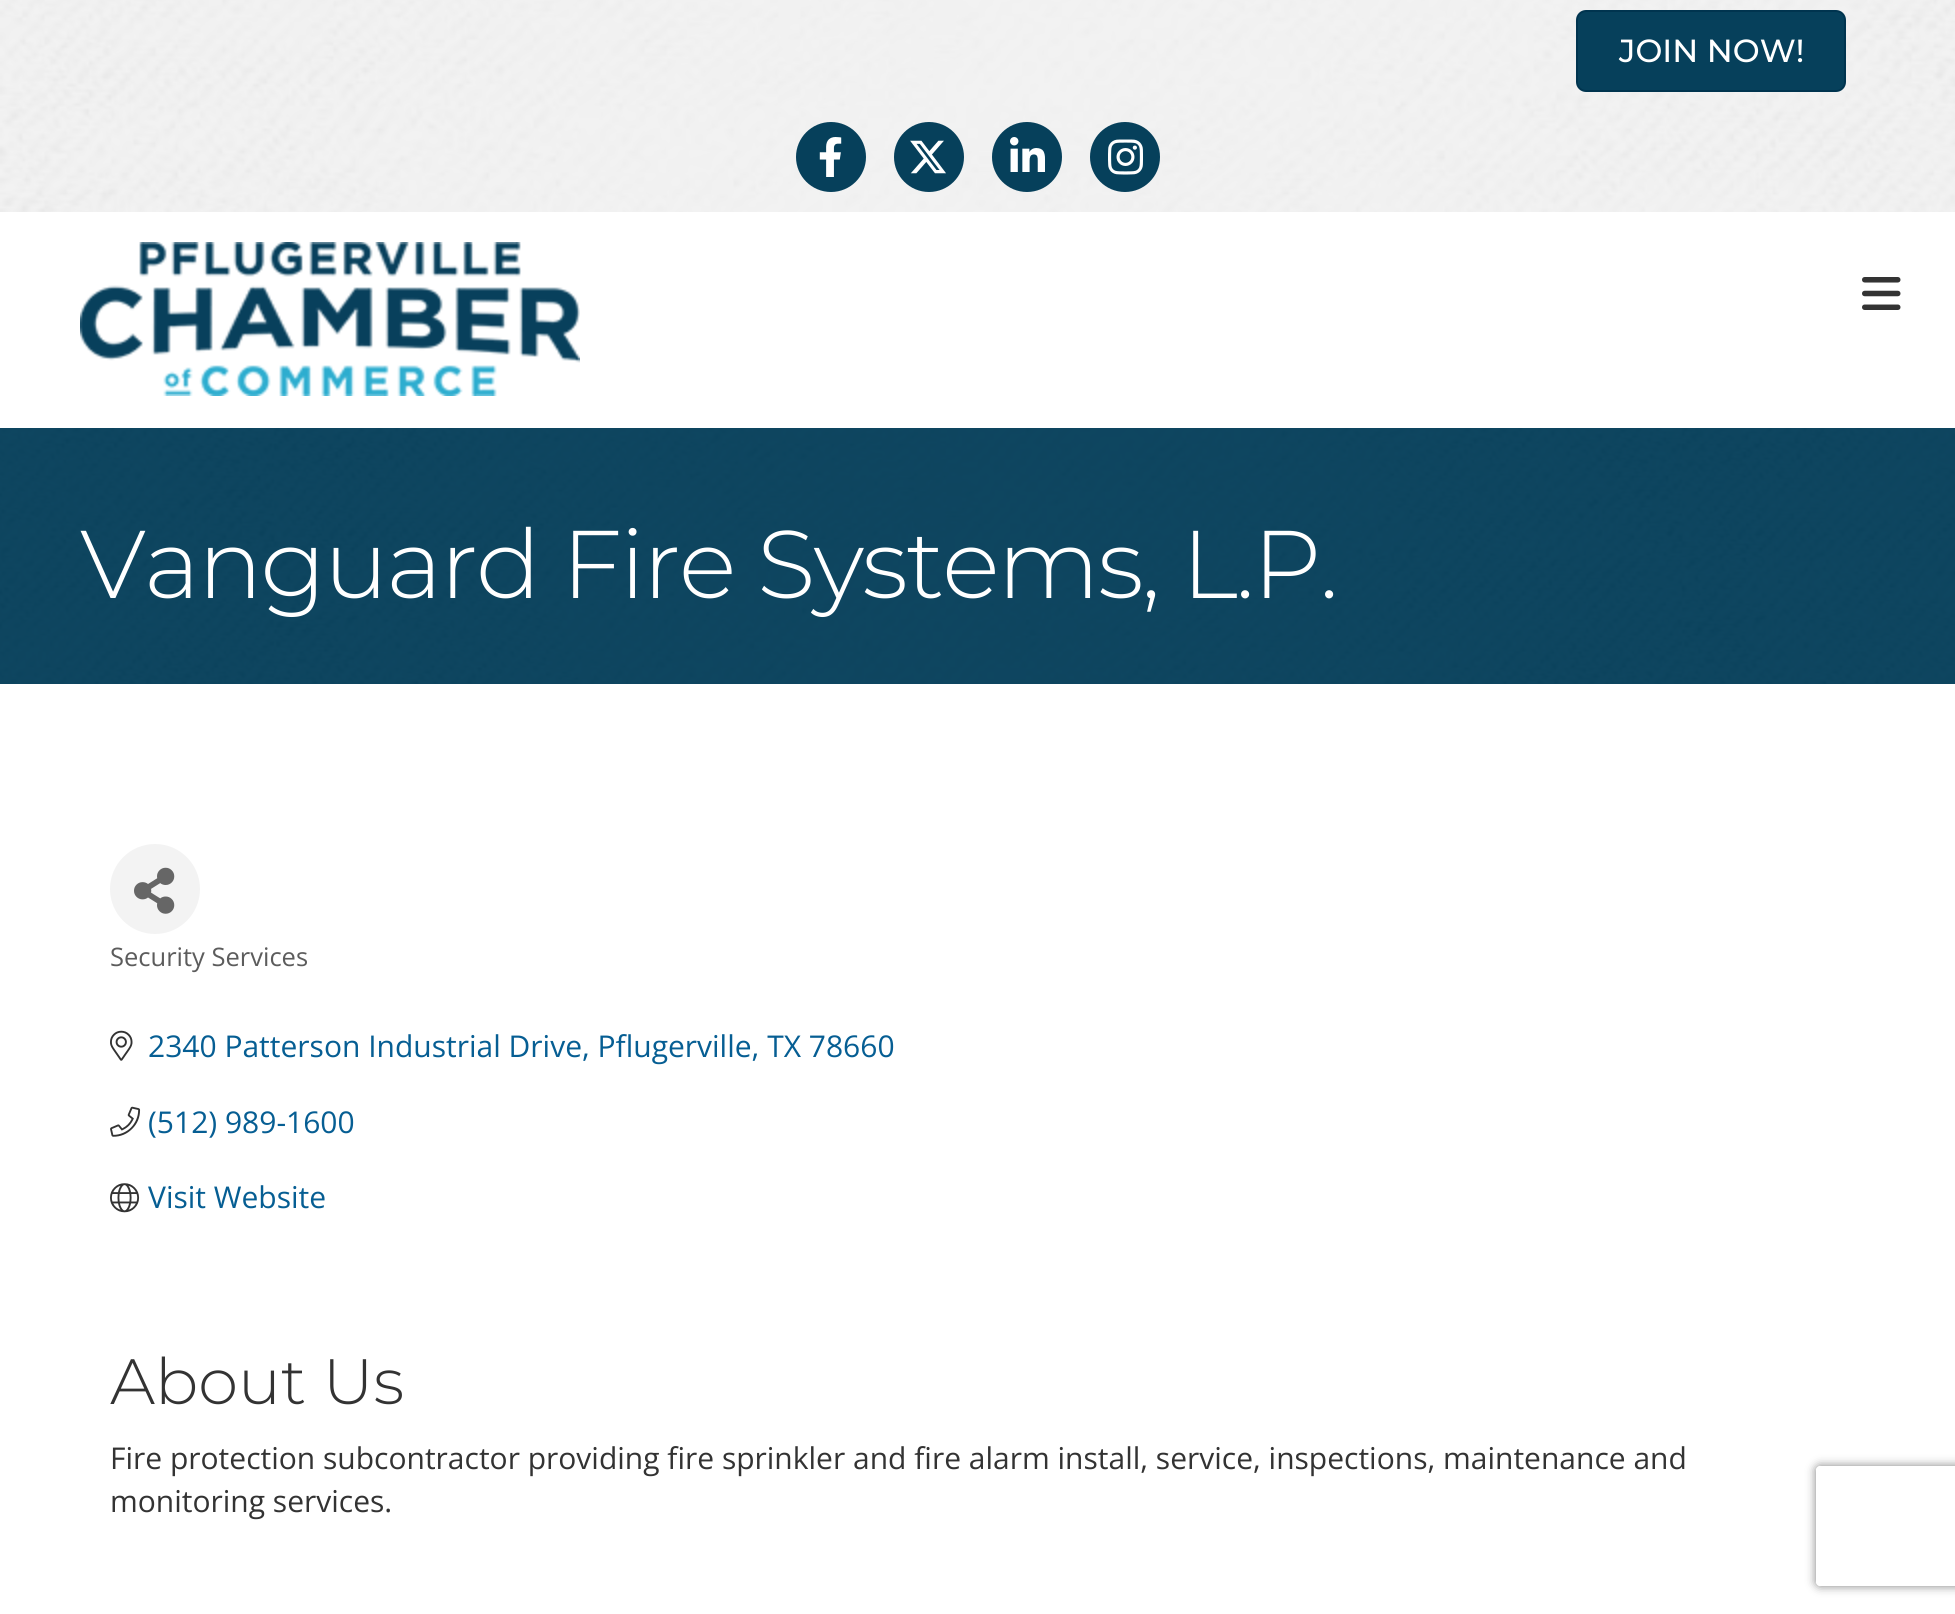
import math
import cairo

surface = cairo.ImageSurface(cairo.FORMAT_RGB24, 1955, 1614)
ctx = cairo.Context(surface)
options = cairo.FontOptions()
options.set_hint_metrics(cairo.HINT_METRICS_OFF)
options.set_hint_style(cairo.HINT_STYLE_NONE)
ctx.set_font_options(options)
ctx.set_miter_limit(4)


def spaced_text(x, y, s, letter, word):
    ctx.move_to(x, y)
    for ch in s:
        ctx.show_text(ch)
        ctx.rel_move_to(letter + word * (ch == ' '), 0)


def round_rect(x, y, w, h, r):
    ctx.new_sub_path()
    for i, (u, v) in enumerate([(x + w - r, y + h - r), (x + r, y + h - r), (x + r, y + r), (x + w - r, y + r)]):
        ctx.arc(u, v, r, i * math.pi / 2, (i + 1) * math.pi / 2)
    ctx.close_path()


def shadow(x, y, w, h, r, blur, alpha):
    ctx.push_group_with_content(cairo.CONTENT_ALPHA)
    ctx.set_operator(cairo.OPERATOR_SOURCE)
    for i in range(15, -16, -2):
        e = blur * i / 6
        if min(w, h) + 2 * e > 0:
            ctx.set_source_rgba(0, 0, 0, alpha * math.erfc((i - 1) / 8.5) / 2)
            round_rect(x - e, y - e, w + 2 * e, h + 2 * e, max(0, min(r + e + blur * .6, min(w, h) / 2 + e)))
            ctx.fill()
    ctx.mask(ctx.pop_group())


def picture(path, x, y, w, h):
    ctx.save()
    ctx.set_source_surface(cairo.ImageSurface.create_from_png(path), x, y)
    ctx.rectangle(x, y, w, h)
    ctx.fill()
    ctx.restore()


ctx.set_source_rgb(1, 1, 1)
ctx.paint()
picture("img1.png", 0, 0, 1955, 212)
ctx.set_source_rgb(0.027, 0.251, 0.357)
round_rect(1577, 11, 268, 80, 9)
ctx.fill_preserve()
ctx.set_source_rgb(0, 0.204, 0.31)
ctx.stroke()
ctx.select_font_face("Montserrat Medium")
ctx.set_font_size(32)
ctx.set_source_rgb(1, 1, 1)
ctx.move_to(1619, 62)
ctx.show_text("JOIN NOW!")
ctx.set_source_rgb(0.027, 0.251, 0.357)
ctx.new_path()
ctx.arc(831, 157, 35, 0, 2 * math.pi)
ctx.fill()
picture("img2.png", 819, 137, 23, 40)
ctx.arc(929, 157, 35, 0, 2 * math.pi)
ctx.fill()
picture("img3.png", 910, 140, 36, 34)
ctx.arc(1027, 157, 35, 0, 2 * math.pi)
ctx.fill()
picture("img4.png", 1010, 137, 35, 35)
ctx.arc(1125, 157, 35, 0, 2 * math.pi)
ctx.fill()
picture("img5.png", 1108, 139, 35, 36)
picture("img6.png", 80, 242, 500, 154)
picture("img7.png", 1862, 277, 39, 33)
picture("img8.png", 0, 428, 1955, 256)
ctx.select_font_face("Montserrat Light")
ctx.set_font_size(96)
ctx.set_source_rgb(1, 1, 1)
spaced_text(80, 598, "Vanguard Fire Systems, L.P.", -2, 0)
ctx.set_source_rgb(0.953, 0.953, 0.953)
ctx.new_path()
ctx.arc(155, 889, 45, 0, 2 * math.pi)
ctx.fill()
picture("img9.png", 134, 867, 41, 47)
ctx.select_font_face("Open Sans")
ctx.set_font_size(25.5)
ctx.set_source_rgb(0.361, 0.361, 0.361)
ctx.move_to(110, 966)
ctx.show_text("Security Services")
picture("img10.png", 110, 1030, 23, 31)
ctx.set_font_size(30)
ctx.set_source_rgb(0.024, 0.369, 0.576)
ctx.move_to(148, 1057)
ctx.show_text("2340 Patterson Industrial Drive, Pflugerville, TX 78660")
picture("img11.png", 110, 1106, 31, 31)
ctx.move_to(148, 1133)
ctx.show_text("(512) 989-1600")
picture("img12.png", 110, 1183, 30, 30)
ctx.move_to(148, 1208)
ctx.show_text("Visit Website")
ctx.select_font_face("Montserrat Light")
ctx.set_font_size(64)
ctx.set_source_rgb(0.2, 0.2, 0.2)
ctx.move_to(110, 1404)
ctx.show_text("About Us")
ctx.select_font_face("Open Sans")
ctx.set_font_size(30)
ctx.move_to(110, 1469)
ctx.show_text("Fire protection subcontractor providing fire sprinkler and fire alarm install, service, inspections, maintenance and")
ctx.move_to(110, 1512)
ctx.show_text("monitoring services.")
ctx.save()
ctx.set_fill_rule(cairo.FILL_RULE_EVEN_ODD)
ctx.new_path()
ctx.move_to(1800, 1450)
ctx.line_to(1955, 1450)
ctx.line_to(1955, 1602)
ctx.line_to(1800, 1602)
ctx.close_path()
ctx.move_to(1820, 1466)
ctx.line_to(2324, 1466)
ctx.curve_to(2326, 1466, 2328, 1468, 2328, 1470)
ctx.line_to(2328, 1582)
ctx.curve_to(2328, 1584, 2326, 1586, 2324, 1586)
ctx.line_to(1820, 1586)
ctx.curve_to(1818, 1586, 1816, 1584, 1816, 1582)
ctx.line_to(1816, 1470)
ctx.curve_to(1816, 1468, 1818, 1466, 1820, 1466)
ctx.close_path()
ctx.clip()
ctx.set_source_rgb(0.502, 0.502, 0.502)
shadow(1816, 1466, 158, 120, 4, 5, 1)
ctx.restore()
surface.write_to_png("page.png")
